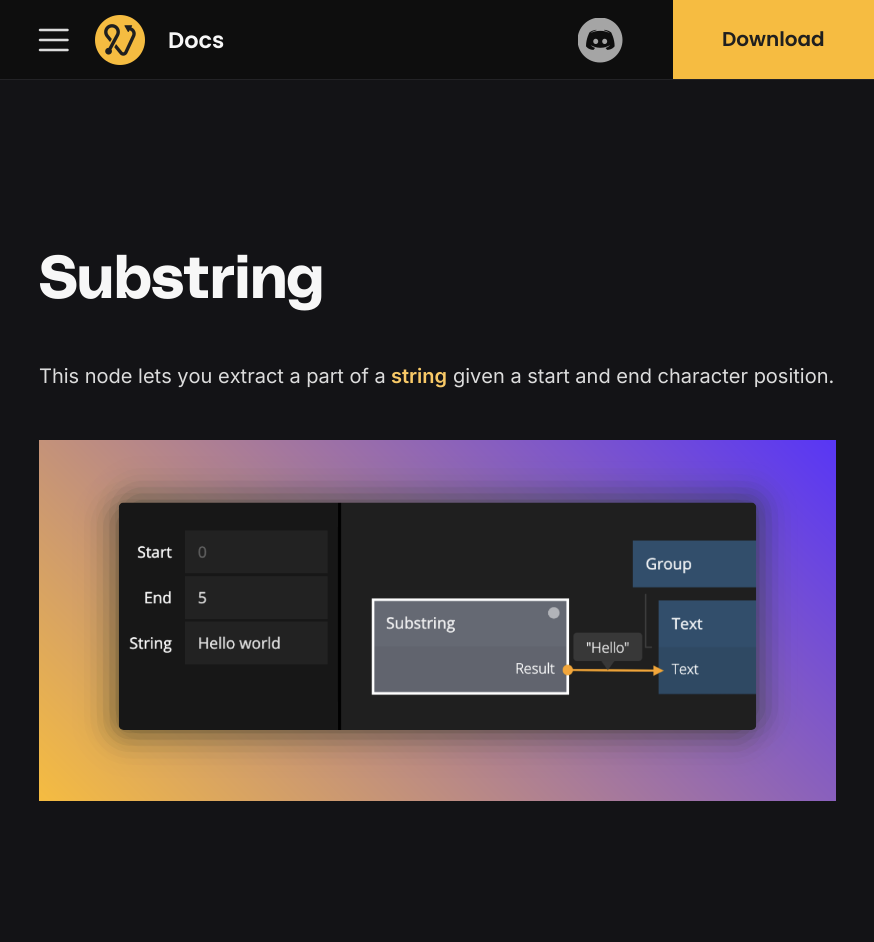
import math
import cairo

surface = cairo.ImageSurface(cairo.FORMAT_RGB24, 874, 942)
ctx = cairo.Context(surface)
options = cairo.FontOptions()
options.set_hint_metrics(cairo.HINT_METRICS_OFF)
options.set_hint_style(cairo.HINT_STYLE_NONE)
ctx.set_font_options(options)
ctx.set_miter_limit(4)


def round_rect(x, y, w, h, r):
    ctx.new_sub_path()
    for i, (u, v) in enumerate([(x + w - r, y + h - r), (x + r, y + h - r), (x + r, y + r), (x + w - r, y + r)]):
        ctx.arc(u, v, r, i * math.pi / 2, (i + 1) * math.pi / 2)
    ctx.close_path()


def shadow(x, y, w, h, r, blur, alpha):
    ctx.push_group_with_content(cairo.CONTENT_ALPHA)
    ctx.set_operator(cairo.OPERATOR_SOURCE)
    for i in range(15, -16, -2):
        e = blur * i / 6
        if min(w, h) + 2 * e > 0:
            ctx.set_source_rgba(0, 0, 0, alpha * math.erfc((i - 1) / 8.5) / 2)
            round_rect(x - e, y - e, w + 2 * e, h + 2 * e, max(0, min(r + e + blur * .6, min(w, h) / 2 + e)))
            ctx.fill()
    ctx.mask(ctx.pop_group())


def picture(path, x, y, w, h):
    ctx.save()
    ctx.set_source_surface(cairo.ImageSurface.create_from_png(path), x, y)
    ctx.rectangle(x, y, w, h)
    ctx.fill()
    ctx.restore()


ctx.set_source_rgb(0.078, 0.078, 0.086)
ctx.paint()
ctx.set_source_rgb(0.055, 0.055, 0.055)
ctx.rectangle(0, 0, 673, 79)
ctx.fill()
ctx.set_source_rgb(0.137, 0.137, 0.149)
ctx.rectangle(0, 79, 874, 1)
ctx.fill()
ctx.new_path()
ctx.move_to(40, 30)
ctx.line_to(67.5, 30)
ctx.move_to(40, 40)
ctx.line_to(67.5, 40)
ctx.move_to(40, 50)
ctx.line_to(67.5, 50)
ctx.set_source_rgb(0.863, 0.863, 0.863)
ctx.set_line_width(2.5)
ctx.set_line_cap(cairo.LINE_CAP_ROUND)
ctx.stroke()
picture("img1.png", 95, 15, 50, 50)
ctx.select_font_face("Poppins SemiBold")
ctx.set_font_size(22.5)
ctx.set_source_rgb(0.965, 0.965, 0.965)
ctx.move_to(168, 48)
ctx.show_text("Docs")
picture("img2.png", 578, 18, 45, 45)
ctx.set_source_rgb(0.961, 0.737, 0.255)
ctx.rectangle(673, 0, 201, 79)
ctx.fill()
ctx.set_font_size(20)
ctx.set_source_rgb(0.122, 0.122, 0.122)
ctx.move_to(722, 46)
ctx.show_text("Download")
ctx.select_font_face("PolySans", cairo.FONT_SLANT_NORMAL, cairo.FONT_WEIGHT_BOLD)
ctx.set_font_size(60)
ctx.set_source_rgb(0.965, 0.965, 0.965)
ctx.move_to(39, 298)
ctx.show_text("Substring")
ctx.select_font_face("Inter")
ctx.set_font_size(20)
ctx.set_source_rgb(0.863, 0.863, 0.863)
ctx.move_to(39, 383)
ctx.show_text("This node lets you extract a part of a")
ctx.select_font_face("Inter SemiBold")
ctx.set_source_rgb(0.969, 0.788, 0.404)
ctx.move_to(391, 383)
ctx.show_text("string")
ctx.select_font_face("Inter")
ctx.set_source_rgb(0.863, 0.863, 0.863)
ctx.move_to(453, 383)
ctx.show_text("given a start and end character position.")
gradient = cairo.LinearGradient(148, 910, 727, 331)
gradient.add_color_stop_rgba(0, 0.961, 0.737, 0.255, 1)
gradient.add_color_stop_rgba(1, 0.345, 0.212, 0.961, 1)
ctx.set_source(gradient)
ctx.rectangle(39, 440, 797, 361)
ctx.fill()
ctx.set_source_rgb(0.125, 0.235, 0.173)
shadow(131, 503, 625, 215, 0, 19, 0.67)
ctx.set_source_rgb(0.22, 0.204, 0.11)
shadow(119, 515, 625, 215, 0, 19, 0.67)
picture("img3.png", 118, 502, 639, 228)
surface.write_to_png("page.png")
